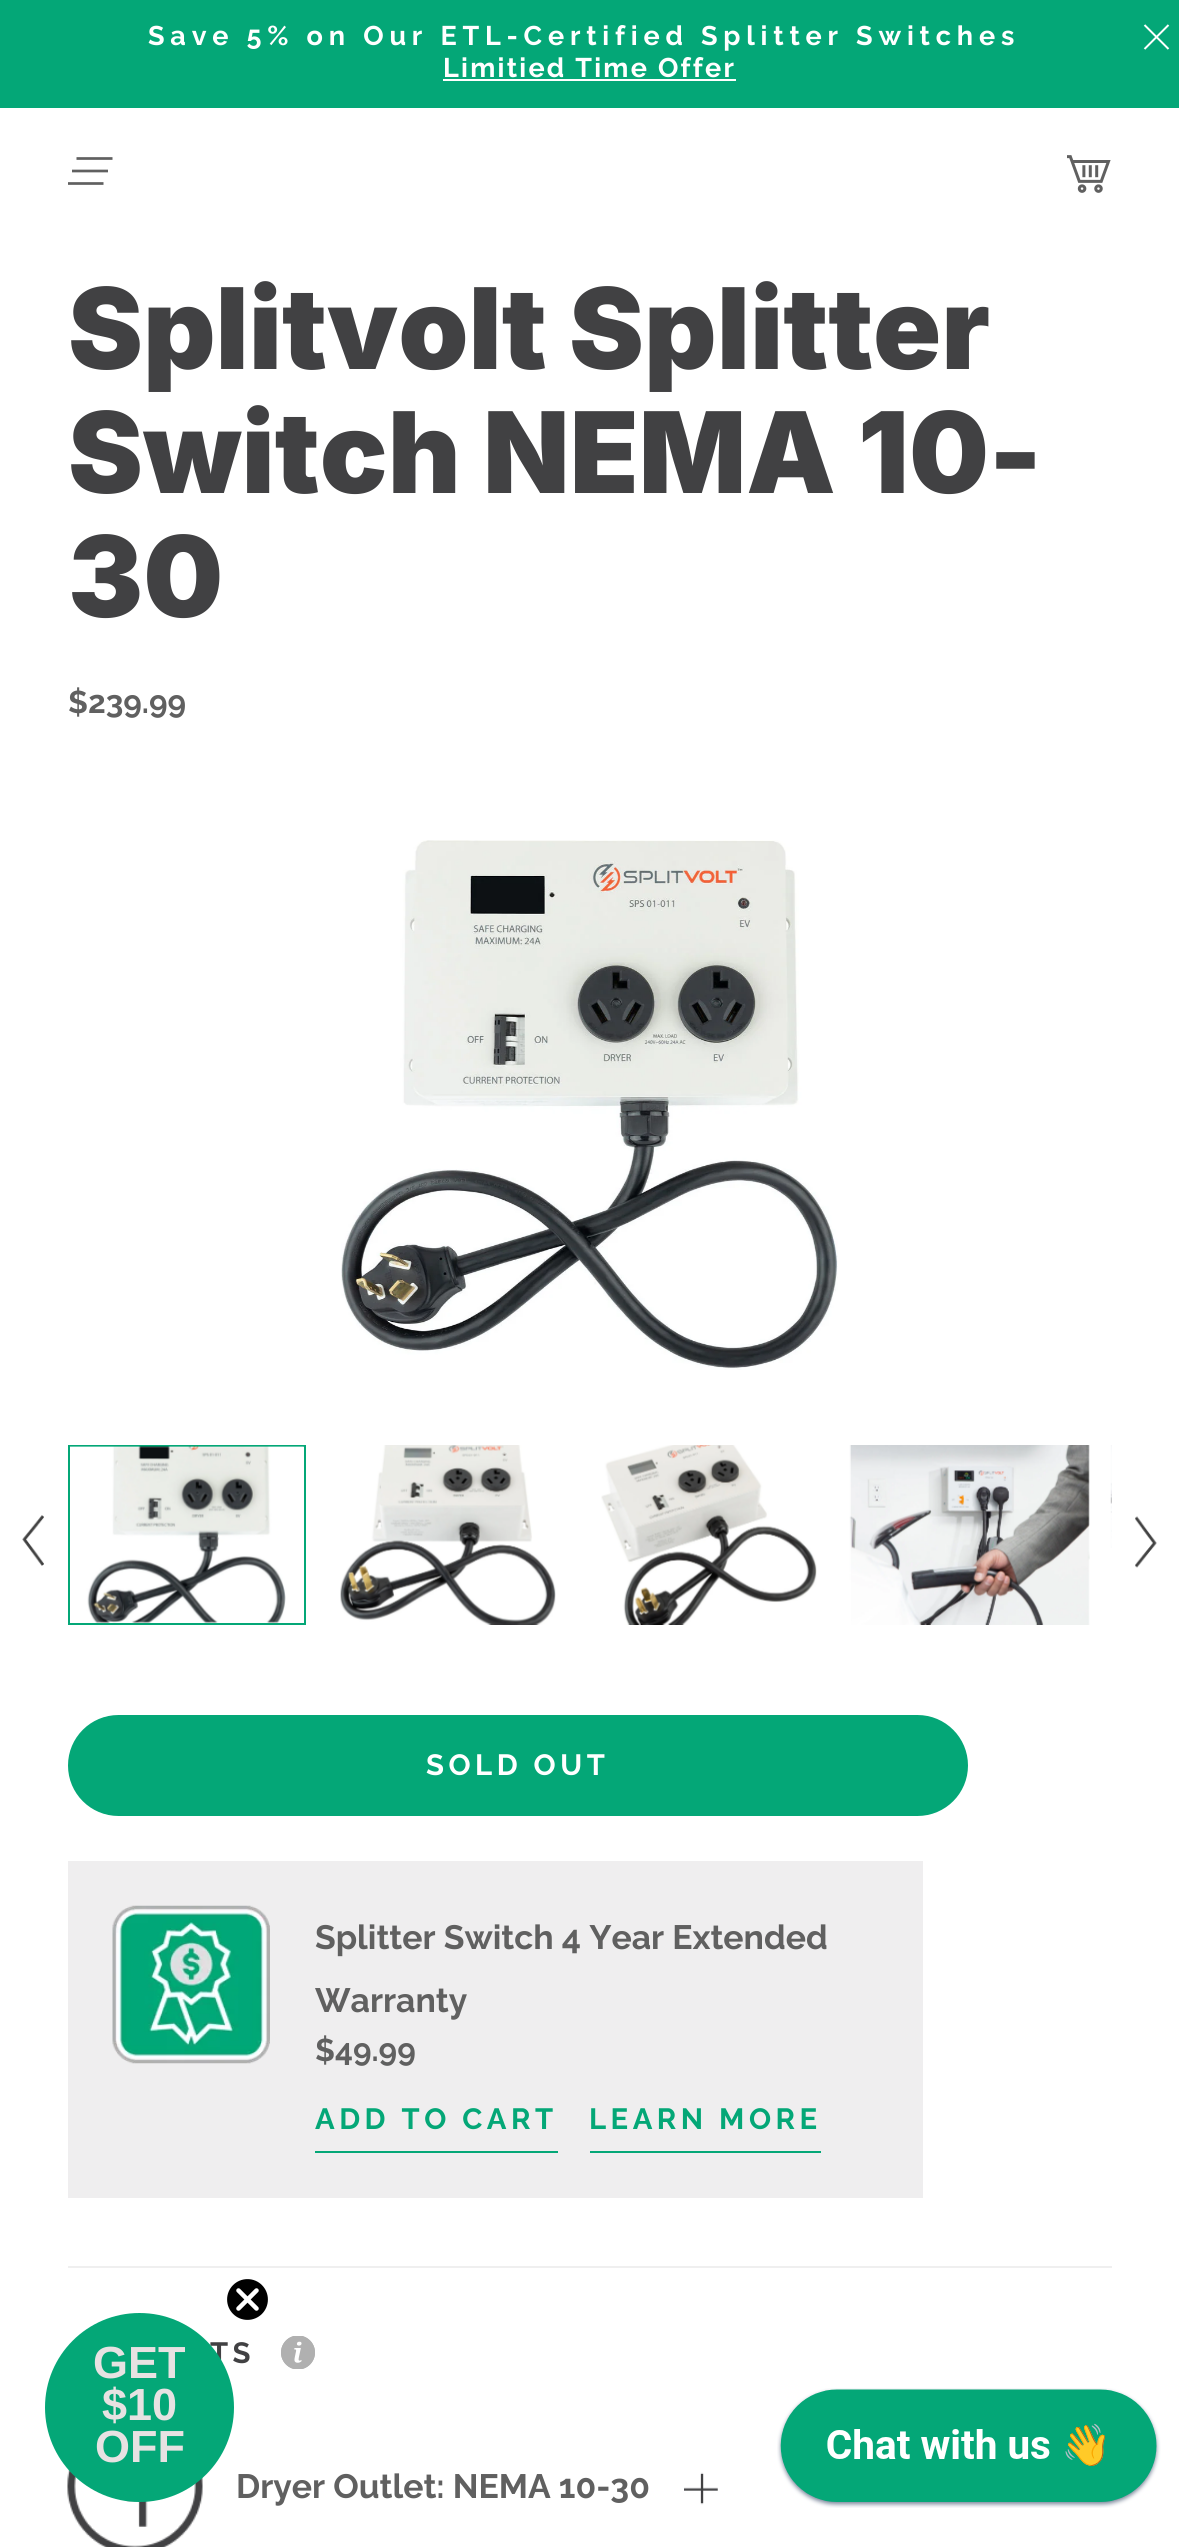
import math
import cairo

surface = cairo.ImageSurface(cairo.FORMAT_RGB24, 1179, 2547)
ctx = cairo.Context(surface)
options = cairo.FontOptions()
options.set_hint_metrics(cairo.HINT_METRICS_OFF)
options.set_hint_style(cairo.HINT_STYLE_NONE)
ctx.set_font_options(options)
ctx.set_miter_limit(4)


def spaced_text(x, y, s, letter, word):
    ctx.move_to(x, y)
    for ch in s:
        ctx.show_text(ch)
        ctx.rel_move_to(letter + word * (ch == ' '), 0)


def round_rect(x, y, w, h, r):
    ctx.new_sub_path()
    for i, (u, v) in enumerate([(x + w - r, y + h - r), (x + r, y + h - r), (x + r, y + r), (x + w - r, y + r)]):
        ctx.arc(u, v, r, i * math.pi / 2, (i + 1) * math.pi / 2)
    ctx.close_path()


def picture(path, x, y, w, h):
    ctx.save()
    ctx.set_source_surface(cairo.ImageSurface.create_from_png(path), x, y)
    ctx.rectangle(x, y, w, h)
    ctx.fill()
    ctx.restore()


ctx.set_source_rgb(1, 1, 1)
ctx.paint()
ctx.set_source_rgb(0.016, 0.655, 0.467)
ctx.rectangle(0, 0, 1179, 108)
ctx.fill()
ctx.select_font_face("Raleway", cairo.FONT_SLANT_NORMAL, cairo.FONT_WEIGHT_BOLD)
ctx.set_font_size(27)
ctx.set_source_rgb(1, 1, 1)
spaced_text(148, 45, "Save 5% on Our ETL-Certified Splitter Switches", 5.8, 0)
spaced_text(443, 77, "Limitied Time Offer", 2.25, 0)
ctx.rectangle(443, 79, 293, 2)
ctx.fill()
ctx.new_path()
ctx.move_to(1144.5, 49)
ctx.line_to(1168.5, 25)
ctx.move_to(1144.5, 25)
ctx.line_to(1168.5, 49)
ctx.stroke()
ctx.save()
ctx.rectangle(68, 149, 45, 45)
ctx.clip()
ctx.new_path()
ctx.move_to(76.5, 158.5)
ctx.line_to(112.5, 158.5)
ctx.move_to(72, 171)
ctx.line_to(108, 171)
ctx.move_to(67.5, 183.5)
ctx.line_to(103.5, 183.5)
ctx.set_source_rgb(0.376, 0.376, 0.376)
ctx.set_line_width(2.7)
ctx.stroke()
ctx.restore()
picture("img1.png", 1067, 155, 44, 38)
ctx.select_font_face("Inter Black")
ctx.set_font_size(112.5)
ctx.set_source_rgb(0.255, 0.255, 0.263)
ctx.move_to(68, 369)
ctx.show_text("Splitvolt Splitter")
ctx.move_to(68, 493)
ctx.show_text("Switch NEMA 10-")
ctx.move_to(68, 617)
ctx.show_text("30")
ctx.select_font_face("Raleway", cairo.FONT_SLANT_NORMAL, cairo.FONT_WEIGHT_BOLD)
ctx.set_font_size(31.5)
ctx.set_source_rgb(0.376, 0.376, 0.376)
ctx.move_to(68, 713)
ctx.show_text("$239.99")
picture("img2.png", 341, 840, 497, 530)
picture("img3.png", 22, 1515, 22, 51)
ctx.rectangle(69, 1446, 236, 178)
ctx.set_source_rgb(0.016, 0.655, 0.467)
ctx.stroke()
picture("img4.png", 70, 1446, 234, 177)
picture("img5.png", 340, 1445, 216, 180)
picture("img6.png", 601, 1445, 216, 180)
picture("img7.png", 849, 1445, 241, 180)
picture("img8.png", 1110, 1445, 2, 103)
picture("img9.png", 1135, 1516, 22, 52)
ctx.set_source_rgb(0.937, 0.937, 0.937)
ctx.rectangle(68, 2266, 1044, 2)
ctx.fill()
ctx.set_source_rgb(0.016, 0.655, 0.467)
round_rect(69, 1716, 898, 99, 49.5)
ctx.fill_preserve()
ctx.stroke()
ctx.set_font_size(29.25)
ctx.set_source_rgb(1, 1, 1)
spaced_text(426, 1775, "SOLD OUT", 4.5, 0)
ctx.set_source_rgb(0.937, 0.933, 0.937)
ctx.rectangle(68, 1861, 855, 337)
ctx.fill()
picture("img10.png", 112, 1905, 158, 159)
ctx.set_font_size(33.75)
ctx.set_source_rgb(0.376, 0.376, 0.376)
ctx.move_to(315, 1949)
ctx.show_text("Splitter Switch 4 Year Extended")
ctx.move_to(315, 2012)
ctx.show_text("Warranty")
ctx.set_font_size(31.5)
ctx.move_to(315, 2061)
ctx.show_text("$49.99")
ctx.set_source_rgb(0.016, 0.655, 0.467)
ctx.rectangle(315, 2151, 243, 2)
ctx.fill()
ctx.set_font_size(29.25)
spaced_text(315, 2129, "ADD TO CART", 4.5, 0)
ctx.rectangle(590, 2151, 231, 2)
ctx.fill()
spaced_text(589, 2129, "LEARN MORE", 4.5, 0)
ctx.set_source_rgb(0.255, 0.255, 0.263)
spaced_text(210, 2363, "TS", 4.5, 0)
picture("img11.png", 281, 2336, 34, 33)
picture("img12.png", 67, 2469, 136, 78)
ctx.set_font_size(33.75)
ctx.set_source_rgb(0.376, 0.376, 0.376)
ctx.move_to(236, 2498)
ctx.show_text("Dryer Outlet: NEMA 10-30")
picture("img13.png", 684, 2472, 34, 33)
ctx.set_source_rgb(0.016, 0.655, 0.467)
ctx.arc(139.5, 2407.5, 94.5, 0, 2 * math.pi)
ctx.fill()
ctx.set_source_rgb(0, 0, 0)
ctx.arc(247.5, 2299.5, 21.5, 0, 2 * math.pi)
ctx.fill_preserve()
ctx.set_source_rgb(1, 1, 1)
ctx.set_line_width(2.2)
ctx.stroke()
ctx.new_path()
ctx.move_to(238.5, 2290.5)
ctx.line_to(256.5, 2308.5)
ctx.move_to(238.5, 2308.5)
ctx.line_to(256.5, 2290.5)
ctx.close_path()
ctx.set_line_width(4.5)
ctx.set_line_cap(cairo.LINE_CAP_ROUND)
ctx.set_line_join(cairo.LINE_JOIN_ROUND)
ctx.stroke()
ctx.select_font_face("Liberation Sans", cairo.FONT_SLANT_NORMAL, cairo.FONT_WEIGHT_BOLD)
ctx.set_font_size(45)
ctx.set_source_rgb(0.906, 0.886, 0.886)
ctx.move_to(93, 2378)
ctx.show_text("GET")
ctx.move_to(102, 2420)
ctx.show_text("$10")
ctx.move_to(95, 2462)
ctx.show_text("OFF")
picture("img14.png", 777, 2388, 384, 120)
surface.write_to_png("page.png")
